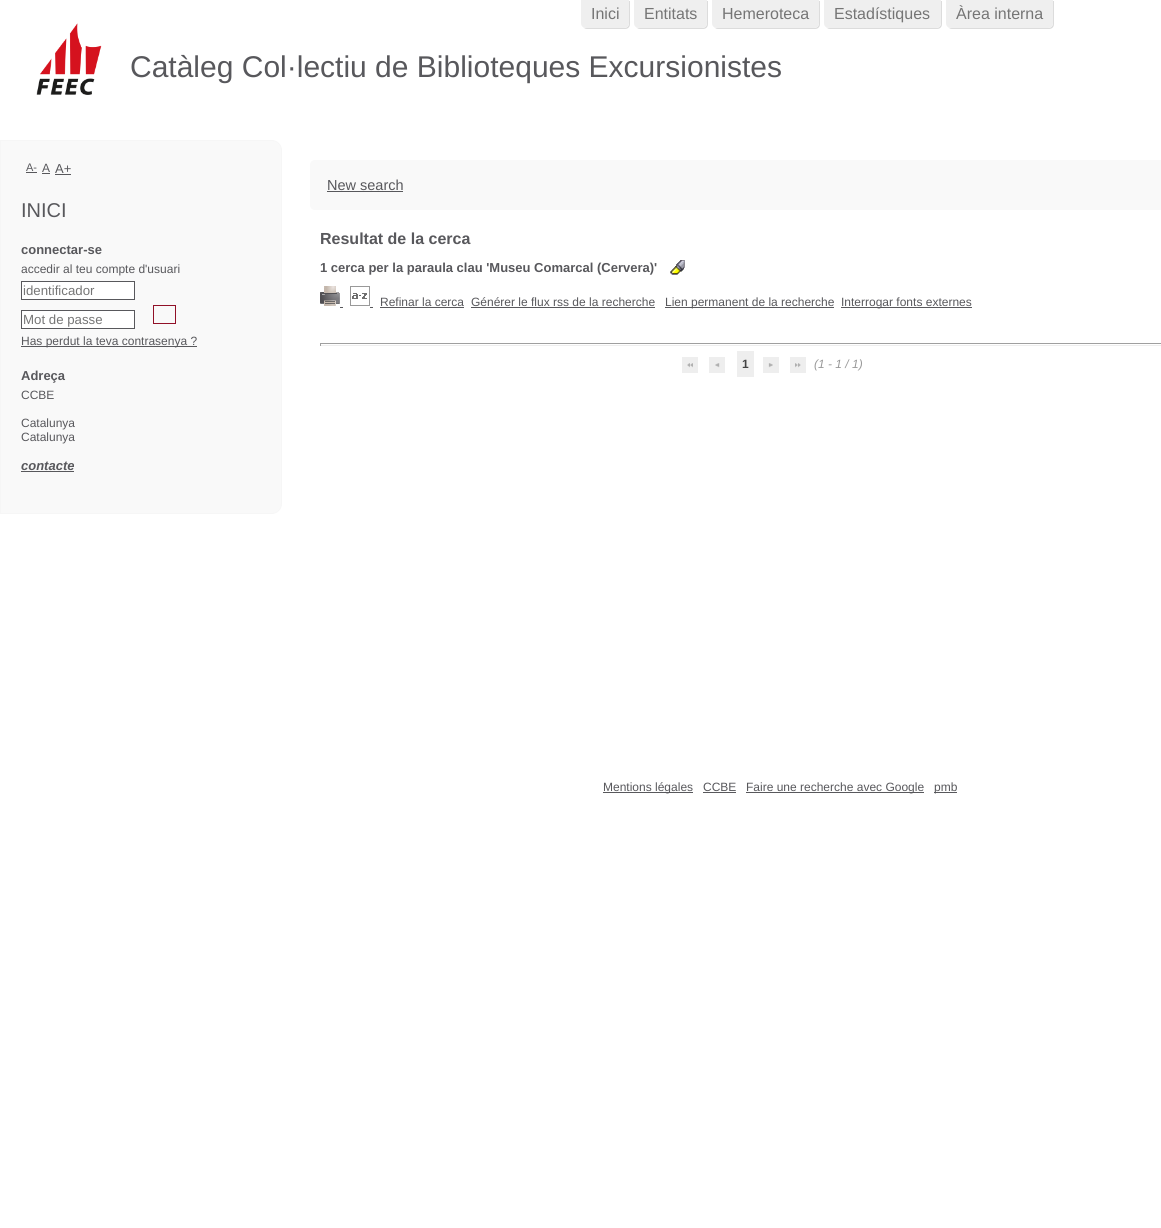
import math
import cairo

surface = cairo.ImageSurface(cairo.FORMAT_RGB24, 1161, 1228)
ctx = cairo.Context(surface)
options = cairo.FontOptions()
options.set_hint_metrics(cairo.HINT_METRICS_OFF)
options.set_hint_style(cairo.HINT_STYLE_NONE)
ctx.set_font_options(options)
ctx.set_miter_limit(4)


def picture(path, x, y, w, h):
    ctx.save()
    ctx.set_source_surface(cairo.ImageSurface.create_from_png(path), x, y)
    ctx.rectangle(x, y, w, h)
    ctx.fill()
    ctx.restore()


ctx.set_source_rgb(1, 1, 1)
ctx.paint()
ctx.set_source_rgb(0.863, 0.863, 0.863)
ctx.new_path()
ctx.move_to(583, 27)
ctx.curve_to(584, 28, 585, 29, 587, 29)
ctx.line_to(625, 29)
ctx.curve_to(628, 29, 630, 27, 630, 24)
ctx.line_to(630, 1)
ctx.line_to(629, 1)
ctx.line_to(629, 23)
ctx.curve_to(629, 26, 627, 28, 624, 28)
ctx.line_to(586, 28)
ctx.curve_to(585, 28, 584, 28, 583, 27)
ctx.close_path()
ctx.fill()
ctx.set_source_rgb(0.937, 0.937, 0.937)
ctx.new_path()
ctx.move_to(581, 0)
ctx.line_to(629, 0)
ctx.line_to(629, 23)
ctx.curve_to(629, 26, 627, 28, 624, 28)
ctx.line_to(586, 28)
ctx.curve_to(583, 28, 581, 26, 581, 23)
ctx.close_path()
ctx.fill()
ctx.select_font_face("Liberation Sans")
ctx.set_font_size(16)
ctx.set_source_rgb(0.459, 0.459, 0.459)
ctx.move_to(591, 19)
ctx.show_text("Inici")
ctx.set_source_rgb(0.863, 0.863, 0.863)
ctx.new_path()
ctx.move_to(636, 27)
ctx.curve_to(637, 28, 638, 29, 640, 29)
ctx.line_to(703, 29)
ctx.curve_to(706, 29, 708, 27, 708, 24)
ctx.line_to(708, 1)
ctx.line_to(707, 1)
ctx.line_to(707, 23)
ctx.curve_to(707, 26, 705, 28, 702, 28)
ctx.line_to(639, 28)
ctx.curve_to(638, 28, 637, 28, 636, 27)
ctx.close_path()
ctx.fill()
ctx.set_source_rgb(0.937, 0.937, 0.937)
ctx.new_path()
ctx.move_to(634, 0)
ctx.line_to(707, 0)
ctx.line_to(707, 23)
ctx.curve_to(707, 26, 705, 28, 702, 28)
ctx.line_to(639, 28)
ctx.curve_to(636, 28, 634, 26, 634, 23)
ctx.close_path()
ctx.fill()
ctx.set_source_rgb(0.459, 0.459, 0.459)
ctx.move_to(644, 19)
ctx.show_text("Entitats")
ctx.set_source_rgb(0.863, 0.863, 0.863)
ctx.new_path()
ctx.move_to(714, 27)
ctx.curve_to(715, 28, 716, 29, 718, 29)
ctx.line_to(815, 29)
ctx.curve_to(818, 29, 820, 27, 820, 24)
ctx.line_to(820, 1)
ctx.line_to(819, 1)
ctx.line_to(819, 23)
ctx.curve_to(819, 26, 817, 28, 814, 28)
ctx.line_to(717, 28)
ctx.curve_to(716, 28, 715, 28, 714, 27)
ctx.close_path()
ctx.fill()
ctx.set_source_rgb(0.937, 0.937, 0.937)
ctx.new_path()
ctx.move_to(712, 0)
ctx.line_to(819, 0)
ctx.line_to(819, 23)
ctx.curve_to(819, 26, 817, 28, 814, 28)
ctx.line_to(717, 28)
ctx.curve_to(714, 28, 712, 26, 712, 23)
ctx.close_path()
ctx.fill()
ctx.set_source_rgb(0.459, 0.459, 0.459)
ctx.move_to(722, 19)
ctx.show_text("Hemeroteca")
ctx.set_source_rgb(0.863, 0.863, 0.863)
ctx.new_path()
ctx.move_to(826, 27)
ctx.curve_to(827, 28, 828, 29, 830, 29)
ctx.line_to(937, 29)
ctx.curve_to(940, 29, 942, 27, 942, 24)
ctx.line_to(942, 1)
ctx.line_to(941, 1)
ctx.line_to(941, 23)
ctx.curve_to(941, 26, 939, 28, 936, 28)
ctx.line_to(829, 28)
ctx.curve_to(828, 28, 827, 28, 826, 27)
ctx.close_path()
ctx.fill()
ctx.set_source_rgb(0.937, 0.937, 0.937)
ctx.new_path()
ctx.move_to(824, 0)
ctx.line_to(941, 0)
ctx.line_to(941, 23)
ctx.curve_to(941, 26, 939, 28, 936, 28)
ctx.line_to(829, 28)
ctx.curve_to(826, 28, 824, 26, 824, 23)
ctx.close_path()
ctx.fill()
ctx.set_source_rgb(0.459, 0.459, 0.459)
ctx.move_to(834, 19)
ctx.show_text("Estadístiques")
ctx.set_source_rgb(0.863, 0.863, 0.863)
ctx.new_path()
ctx.move_to(948, 27)
ctx.curve_to(949, 28, 950, 29, 952, 29)
ctx.line_to(1049, 29)
ctx.curve_to(1052, 29, 1054, 27, 1054, 24)
ctx.line_to(1054, 1)
ctx.line_to(1053, 1)
ctx.line_to(1053, 23)
ctx.curve_to(1053, 26, 1051, 28, 1048, 28)
ctx.line_to(951, 28)
ctx.curve_to(950, 28, 949, 28, 948, 27)
ctx.close_path()
ctx.fill()
ctx.set_source_rgb(0.937, 0.937, 0.937)
ctx.new_path()
ctx.move_to(946, 0)
ctx.line_to(1053, 0)
ctx.line_to(1053, 23)
ctx.curve_to(1053, 26, 1051, 28, 1048, 28)
ctx.line_to(951, 28)
ctx.curve_to(948, 28, 946, 26, 946, 23)
ctx.close_path()
ctx.fill()
ctx.set_source_rgb(0.459, 0.459, 0.459)
ctx.move_to(956, 19)
ctx.show_text("Àrea interna")
ctx.set_source_rgb(0.976, 0.976, 0.976)
ctx.new_path()
ctx.move_to(0.5, 140.5)
ctx.line_to(272, 140.5)
ctx.curve_to(277, 140.5, 281.5, 145, 281.5, 150)
ctx.line_to(281.5, 504)
ctx.curve_to(281.5, 509, 277, 513.5, 272, 513.5)
ctx.line_to(0.5, 513.5)
ctx.close_path()
ctx.fill_preserve()
ctx.set_source_rgb(0.961, 0.961, 0.961)
ctx.set_line_width(1)
ctx.stroke()
ctx.set_font_size(11)
ctx.set_source_rgb(0.345, 0.345, 0.361)
ctx.move_to(26, 171)
ctx.show_text("A-")
ctx.rectangle(26, 172, 11, 1)
ctx.fill()
ctx.set_font_size(12)
ctx.move_to(42, 172)
ctx.show_text("A")
ctx.rectangle(42, 173, 8, 1)
ctx.fill()
ctx.set_font_size(13)
ctx.move_to(55, 173)
ctx.show_text("A+")
ctx.rectangle(55, 174, 16, 1)
ctx.fill()
ctx.set_font_size(20)
ctx.move_to(21, 217)
ctx.show_text("INICI")
ctx.select_font_face("Liberation Sans", cairo.FONT_SLANT_NORMAL, cairo.FONT_WEIGHT_BOLD)
ctx.set_font_size(13)
ctx.move_to(21, 254)
ctx.show_text("connectar-se")
ctx.select_font_face("Liberation Sans")
ctx.set_font_size(12)
ctx.move_to(21, 273)
ctx.show_text("accedir al teu compte d'usuari")
ctx.set_source_rgb(1, 1, 1)
ctx.rectangle(21.5, 281.5, 113, 18)
ctx.fill_preserve()
ctx.set_source_rgb(0.345, 0.345, 0.361)
ctx.stroke()
ctx.set_font_size(13.25)
ctx.set_source_rgb(0.459, 0.459, 0.459)
ctx.move_to(23, 295)
ctx.show_text("identificador")
ctx.set_source_rgb(1, 1, 1)
ctx.rectangle(21.5, 310.5, 113, 18)
ctx.fill_preserve()
ctx.set_source_rgb(0.345, 0.345, 0.361)
ctx.stroke()
ctx.set_source_rgb(0.459, 0.459, 0.459)
ctx.move_to(23, 324)
ctx.show_text("Mot de passe")
ctx.rectangle(153.5, 305.5, 22, 18)
ctx.set_source_rgb(0.569, 0.063, 0.157)
ctx.stroke()
ctx.set_source_rgb(0.345, 0.345, 0.361)
ctx.rectangle(21, 346, 176, 1)
ctx.fill()
ctx.set_font_size(12)
ctx.move_to(21, 345)
ctx.show_text("Has perdut la teva contrasenya ?")
ctx.select_font_face("Liberation Sans", cairo.FONT_SLANT_NORMAL, cairo.FONT_WEIGHT_BOLD)
ctx.set_font_size(13)
ctx.move_to(21, 380)
ctx.show_text("Adreça")
ctx.select_font_face("Liberation Sans")
ctx.set_font_size(12)
ctx.move_to(21, 399)
ctx.show_text("CCBE")
ctx.move_to(21, 427)
ctx.show_text("Catalunya")
ctx.move_to(21, 441)
ctx.show_text("Catalunya")
ctx.select_font_face("Liberation Sans", cairo.FONT_SLANT_ITALIC, cairo.FONT_WEIGHT_BOLD)
ctx.set_font_size(13)
ctx.move_to(21, 470)
ctx.show_text("contacte")
ctx.rectangle(21, 471, 53, 1)
ctx.fill()
picture("img1.png", 36, 23, 66, 72)
ctx.select_font_face("Liberation Sans")
ctx.set_font_size(30)
ctx.move_to(130, 77)
ctx.show_text("Catàleg Col·lectiu de Biblioteques Excursionistes")
ctx.set_source_rgb(0.976, 0.976, 0.976)
ctx.new_path()
ctx.move_to(315, 160)
ctx.line_to(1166, 160)
ctx.line_to(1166, 210)
ctx.line_to(315, 210)
ctx.curve_to(312, 210, 310, 208, 310, 205)
ctx.line_to(310, 165)
ctx.curve_to(310, 162, 312, 160, 315, 160)
ctx.close_path()
ctx.fill()
ctx.set_font_size(14.5)
ctx.set_source_rgb(0.345, 0.345, 0.361)
ctx.move_to(327, 190)
ctx.show_text("New search")
ctx.rectangle(327, 191, 76, 1)
ctx.fill()
ctx.select_font_face("Liberation Sans", cairo.FONT_SLANT_NORMAL, cairo.FONT_WEIGHT_BOLD)
ctx.set_font_size(16)
ctx.move_to(320, 244)
ctx.show_text("Resultat de la cerca")
ctx.set_font_size(13)
ctx.move_to(320, 272)
ctx.show_text("1 cerca per la paraula clau 'Museu Comarcal (Cervera)'")
picture("img2.png", 670, 260, 15, 15)
picture("img3.png", 320, 286, 20, 20)
ctx.rectangle(340, 307, 3, 1)
ctx.fill()
picture("img4.png", 350, 286, 20, 20)
ctx.rectangle(370, 307, 3, 1)
ctx.fill()
ctx.select_font_face("Liberation Sans")
ctx.set_font_size(12)
ctx.move_to(380, 306)
ctx.show_text("Refinar la cerca")
ctx.rectangle(380, 307, 84, 1)
ctx.fill()
ctx.move_to(471, 306)
ctx.show_text("Générer le flux rss de la recherche")
ctx.rectangle(471, 307, 184, 1)
ctx.fill()
ctx.rectangle(665, 307, 169, 1)
ctx.fill()
ctx.move_to(665, 306)
ctx.show_text("Lien permanent de la recherche")
ctx.rectangle(841, 307, 131, 1)
ctx.fill()
ctx.move_to(841, 306)
ctx.show_text("Interrogar fonts externes")
ctx.set_source_rgb(0.624, 0.624, 0.624)
ctx.rectangle(320, 343, 841, 1)
ctx.fill()
ctx.set_source_rgb(0.933, 0.933, 0.933)
ctx.rectangle(320, 345, 841, 1)
ctx.fill()
ctx.set_source_rgb(0.624, 0.624, 0.624)
ctx.rectangle(320, 343, 1, 3)
ctx.fill()
ctx.set_source_rgb(0.933, 0.933, 0.933)
ctx.rectangle(682, 357, 16, 16)
ctx.fill()
picture("img5.png", 687, 363, 6, 5)
ctx.rectangle(709, 357, 16, 16)
ctx.fill()
picture("img6.png", 715, 363, 5, 5)
ctx.rectangle(737, 351, 17, 26)
ctx.fill()
ctx.select_font_face("Liberation Sans", cairo.FONT_SLANT_NORMAL, cairo.FONT_WEIGHT_BOLD)
ctx.set_source_rgb(0.267, 0.267, 0.267)
ctx.move_to(742, 368)
ctx.show_text("1")
ctx.set_source_rgb(0.933, 0.933, 0.933)
ctx.rectangle(763, 357, 16, 16)
ctx.fill()
picture("img7.png", 768, 363, 5, 5)
ctx.rectangle(790, 357, 16, 16)
ctx.fill()
picture("img8.png", 795, 363, 6, 5)
ctx.select_font_face("Liberation Sans", cairo.FONT_SLANT_ITALIC)
ctx.set_source_rgb(0.6, 0.6, 0.6)
ctx.move_to(814, 368)
ctx.show_text("(1 - 1 / 1)")
ctx.set_source_rgb(0.345, 0.345, 0.361)
ctx.rectangle(603, 792, 90, 1)
ctx.fill()
ctx.select_font_face("Liberation Sans")
ctx.move_to(603, 791)
ctx.show_text("Mentions légales")
ctx.move_to(703, 791)
ctx.show_text("CCBE")
ctx.rectangle(703, 792, 33, 1)
ctx.fill()
ctx.rectangle(746, 792, 178, 1)
ctx.fill()
ctx.move_to(746, 791)
ctx.show_text("Faire une recherche avec Google")
ctx.rectangle(934, 792, 23, 1)
ctx.fill()
ctx.move_to(934, 791)
ctx.show_text("pmb")
surface.write_to_png("page.png")
